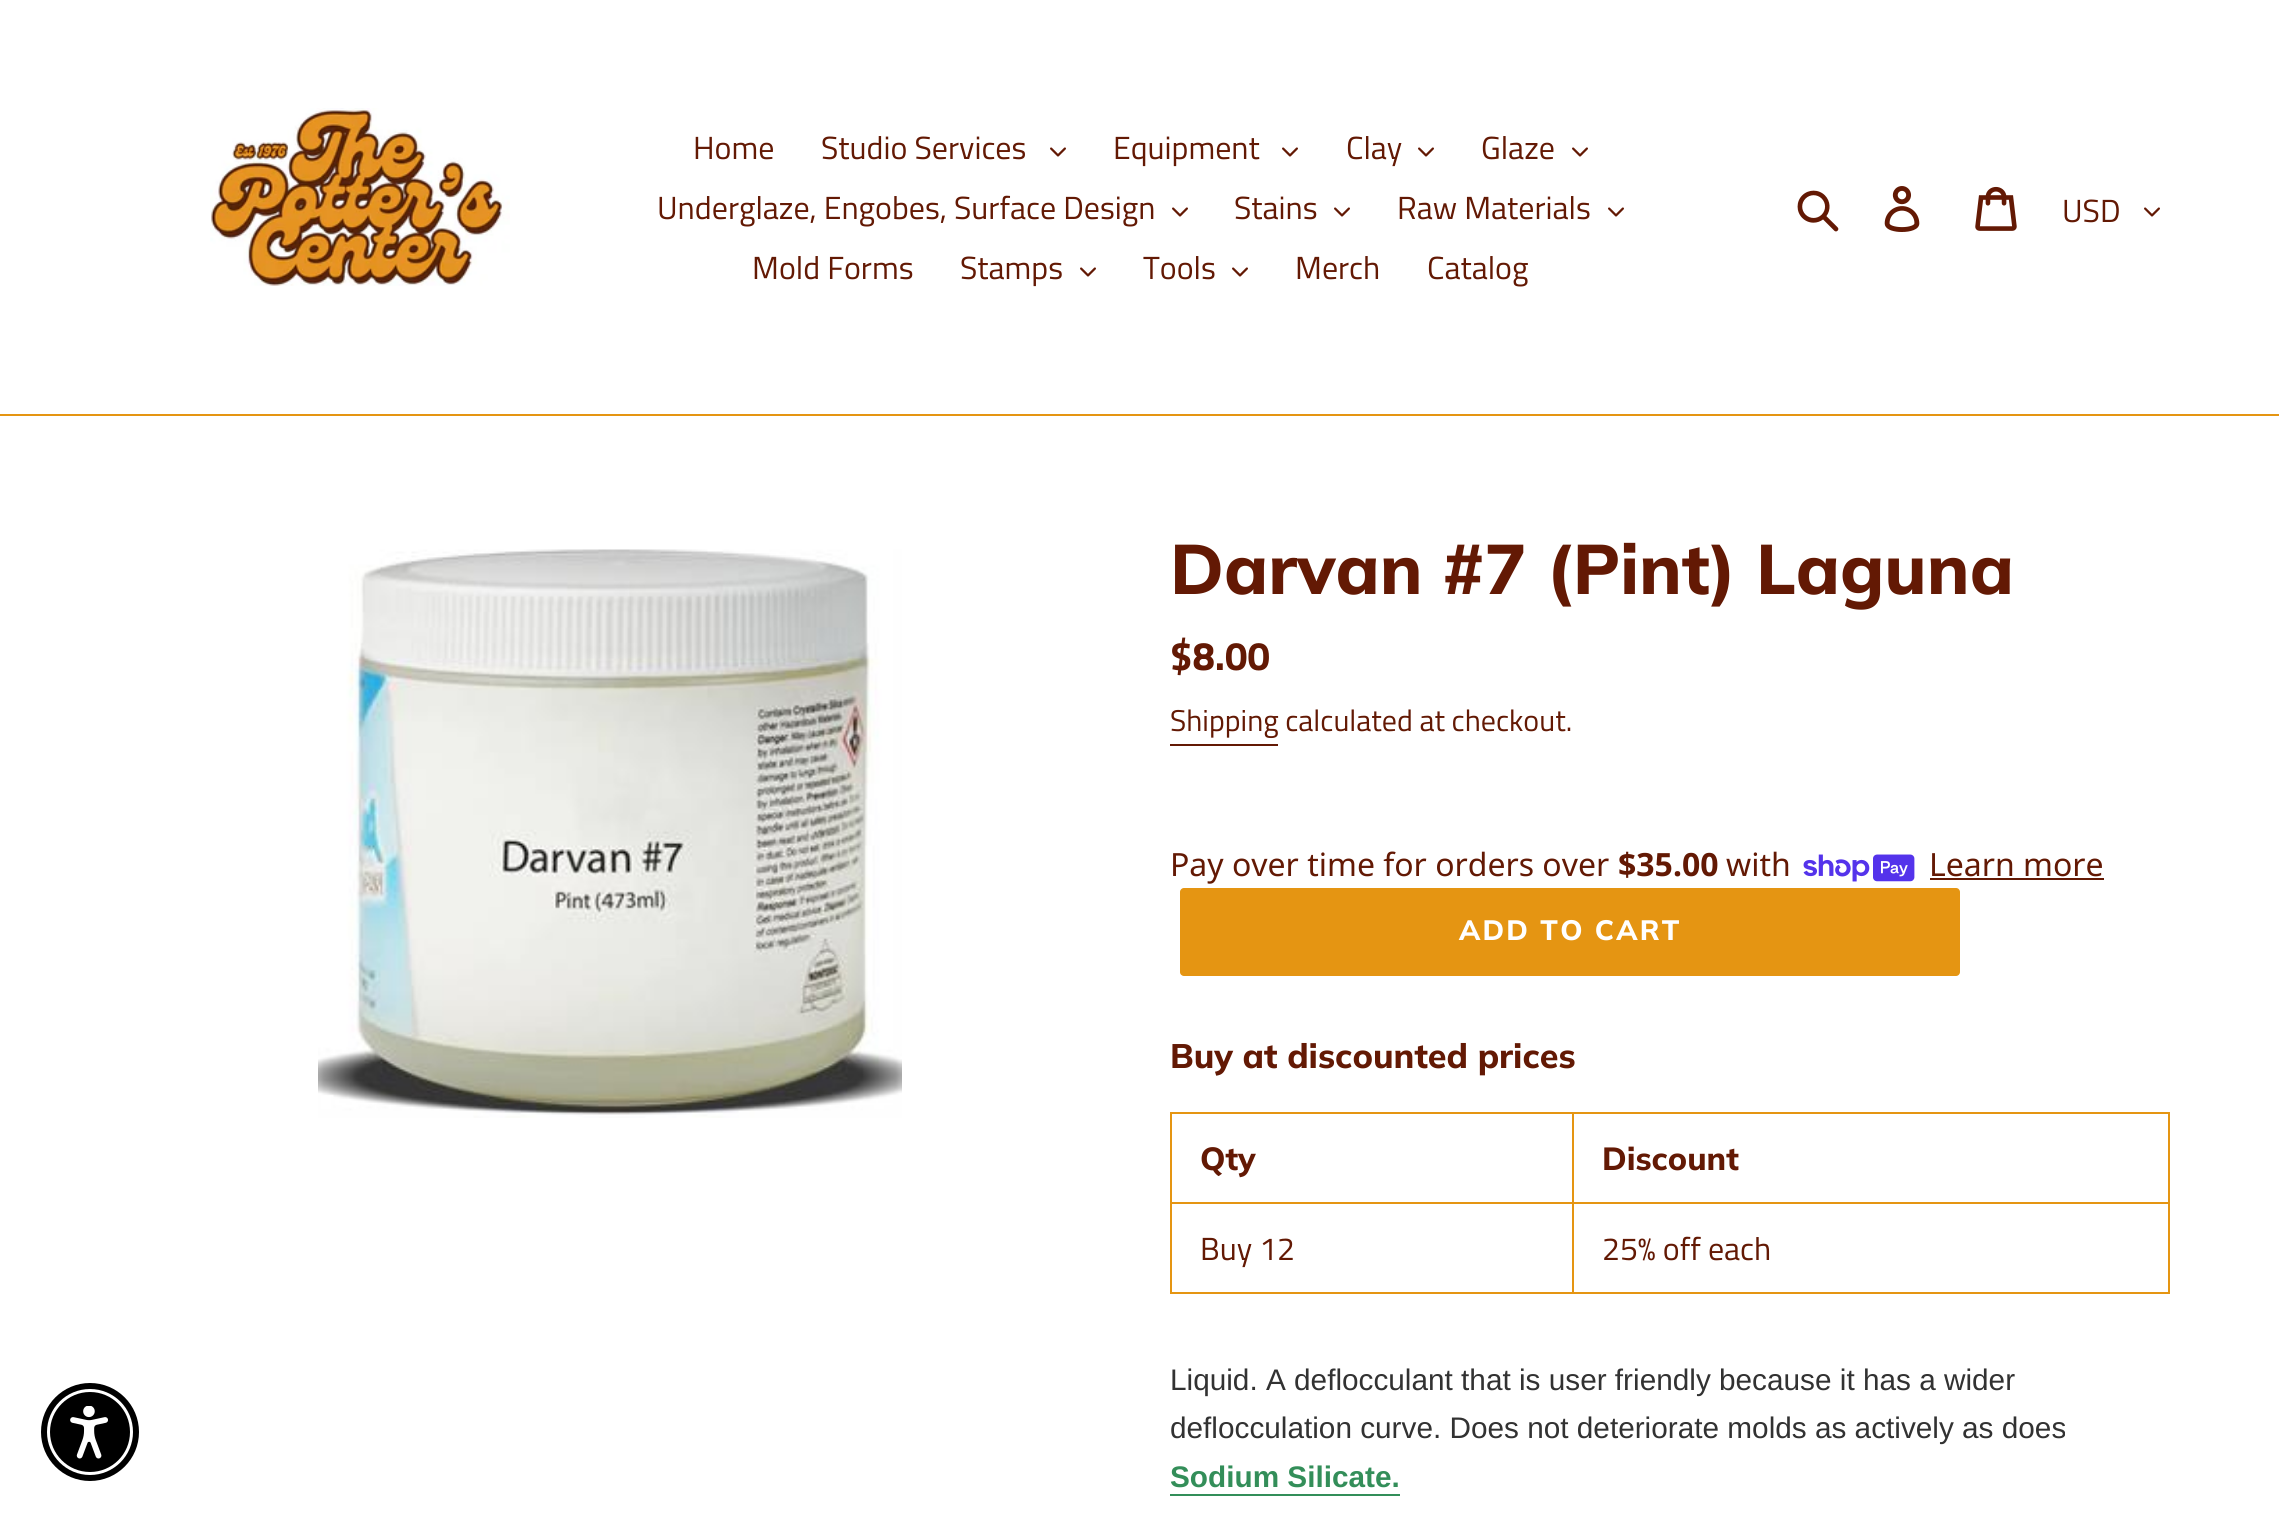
import math
import cairo

surface = cairo.ImageSurface(cairo.FORMAT_RGB24, 2279, 1522)
ctx = cairo.Context(surface)
options = cairo.FontOptions()
options.set_hint_metrics(cairo.HINT_METRICS_OFF)
options.set_hint_style(cairo.HINT_STYLE_NONE)
ctx.set_font_options(options)
ctx.set_miter_limit(4)


def spaced_text(x, y, s, letter, word):
    ctx.move_to(x, y)
    for ch in s:
        ctx.show_text(ch)
        ctx.rel_move_to(letter + word * (ch == ' '), 0)


def round_rect(x, y, w, h, r):
    ctx.new_sub_path()
    for i, (u, v) in enumerate([(x + w - r, y + h - r), (x + r, y + h - r), (x + r, y + r), (x + w - r, y + r)]):
        ctx.arc(u, v, r, i * math.pi / 2, (i + 1) * math.pi / 2)
    ctx.close_path()


def picture(path, x, y, w, h):
    ctx.save()
    ctx.set_source_surface(cairo.ImageSurface.create_from_png(path), x, y)
    ctx.rectangle(x, y, w, h)
    ctx.fill()
    ctx.restore()


ctx.set_source_rgb(1, 1, 1)
ctx.paint()
ctx.set_source_rgb(0.898, 0.584, 0.071)
ctx.rectangle(0, 414, 2279, 2)
ctx.fill()
picture("img1.png", 210, 108, 300, 178)
ctx.select_font_face("Titillium Web")
ctx.set_font_size(32)
ctx.set_source_rgb(0.388, 0.098, 0.016)
ctx.move_to(693, 159)
ctx.show_text("Home")
ctx.move_to(821, 159)
ctx.show_text("Studio Services")
picture("img2.png", 1050, 147, 16, 10)
ctx.move_to(1113, 159)
ctx.show_text("Equipment")
picture("img2.png", 1282, 147, 16, 10)
ctx.move_to(1346, 159)
ctx.show_text("Clay")
picture("img2.png", 1418, 147, 16, 10)
ctx.move_to(1481, 159)
ctx.show_text("Glaze")
picture("img2.png", 1572, 147, 16, 10)
ctx.move_to(657, 219)
ctx.show_text("Underglaze, Engobes, Surface Design")
picture("img2.png", 1172, 207, 16, 10)
ctx.move_to(1234, 219)
ctx.show_text("Stains")
picture("img2.png", 1334, 207, 16, 10)
ctx.move_to(1397, 219)
ctx.show_text("Raw Materials")
picture("img2.png", 1608, 207, 16, 10)
ctx.move_to(752, 279)
ctx.show_text("Mold Forms")
ctx.move_to(960, 279)
ctx.show_text("Stamps")
picture("img2.png", 1080, 267, 16, 10)
ctx.move_to(1143, 279)
ctx.show_text("Tools")
picture("img2.png", 1232, 267, 16, 10)
ctx.move_to(1295, 279)
ctx.show_text("Merch")
ctx.move_to(1427, 279)
ctx.show_text("Catalog")
picture("img3.png", 1797, 190, 42, 42)
picture("img4.png", 1884, 186, 36, 46)
picture("img5.png", 1975, 186, 42, 45)
ctx.move_to(2062, 222)
ctx.show_text("USD")
picture("img2.png", 2144, 207, 16, 10)
ctx.set_source_rgb(0, 0, 0)
ctx.arc(90, 1432, 49, 0, 2 * math.pi)
ctx.fill()
ctx.set_source_rgb(1, 1, 1)
ctx.arc(90, 1432, 43, 0, 2 * math.pi)
ctx.fill()
ctx.set_source_rgb(0, 0, 0)
ctx.arc(90, 1432, 40, 0, 2 * math.pi)
ctx.fill()
picture("img6.png", 70, 1406, 38, 53)
picture("img7.png", 318, 549, 584, 569)
ctx.select_font_face("Muli ExtraBold")
ctx.set_font_size(70)
ctx.set_source_rgb(0.388, 0.098, 0.016)
ctx.move_to(1170, 594)
ctx.show_text("Darvan #7 (Pint) Laguna")
ctx.select_font_face("Titillium Web", cairo.FONT_SLANT_NORMAL, cairo.FONT_WEIGHT_BOLD)
ctx.set_font_size(40)
ctx.move_to(1170, 670)
ctx.show_text("$8.00")
ctx.select_font_face("Titillium Web")
ctx.set_font_size(30)
ctx.move_to(1170, 731)
ctx.show_text("Shipping calculated at checkout.")
ctx.rectangle(1170, 744, 108, 2)
ctx.fill()
ctx.select_font_face("Noto Sans")
ctx.set_font_size(32)
ctx.move_to(1170, 876)
ctx.show_text("Pay over time for orders over")
ctx.select_font_face("Noto Sans", cairo.FONT_SLANT_NORMAL, cairo.FONT_WEIGHT_BOLD)
ctx.move_to(1618, 876)
ctx.show_text("$35.00")
ctx.select_font_face("Noto Sans")
ctx.move_to(1726, 876)
ctx.show_text("with")
picture("img8.png", 1803, 854, 112, 28)
ctx.move_to(1929, 876)
ctx.show_text("Learn more")
ctx.rectangle(1930, 878, 174, 2)
ctx.fill()
ctx.set_source_rgb(0.898, 0.584, 0.071)
round_rect(1180, 888, 780, 88, 4)
ctx.fill()
ctx.select_font_face("Muli ExtraBold")
ctx.set_font_size(28)
ctx.set_source_rgb(1, 1, 1)
spaced_text(1459, 940, "ADD TO CART", 2.25, 0)
ctx.set_font_size(34)
ctx.set_source_rgb(0.388, 0.098, 0.016)
ctx.move_to(1170, 1068)
ctx.show_text("Buy at discounted prices")
ctx.set_source_rgb(0.898, 0.584, 0.071)
ctx.rectangle(1572, 1112, 598, 2)
ctx.fill()
ctx.rectangle(1572, 1202, 598, 2)
ctx.fill()
ctx.rectangle(2168, 1202, 2, 92)
ctx.fill()
ctx.rectangle(1572, 1292, 598, 2)
ctx.fill()
ctx.rectangle(1572, 1202, 2, 92)
ctx.fill()
ctx.rectangle(1170, 1202, 404, 2)
ctx.fill()
ctx.rectangle(1572, 1112, 2, 92)
ctx.fill()
ctx.rectangle(1170, 1112, 404, 2)
ctx.fill()
ctx.rectangle(1170, 1292, 404, 2)
ctx.fill()
ctx.rectangle(1170, 1202, 2, 92)
ctx.fill()
ctx.rectangle(1170, 1112, 2, 92)
ctx.fill()
ctx.set_font_size(32)
ctx.set_source_rgb(0.388, 0.098, 0.016)
ctx.move_to(1200, 1170)
ctx.show_text("Qty")
ctx.set_source_rgb(0.898, 0.584, 0.071)
ctx.rectangle(2168, 1112, 2, 92)
ctx.fill()
ctx.set_source_rgb(0.388, 0.098, 0.016)
ctx.move_to(1602, 1170)
ctx.show_text("Discount")
ctx.select_font_face("Titillium Web")
ctx.move_to(1200, 1260)
ctx.show_text("Buy 12")
ctx.move_to(1602, 1260)
ctx.show_text("25% off each")
ctx.select_font_face("Liberation Sans")
ctx.set_font_size(29.75)
ctx.set_source_rgb(0.196, 0.196, 0.196)
ctx.move_to(1170, 1390)
ctx.show_text("Liquid. A deflocculant that is user friendly because it has a wider")
ctx.move_to(1170, 1438)
ctx.show_text("deflocculation curve. Does not deteriorate molds as actively as does")
ctx.select_font_face("Liberation Sans", cairo.FONT_SLANT_NORMAL, cairo.FONT_WEIGHT_BOLD)
ctx.set_source_rgb(0.2, 0.557, 0.349)
ctx.move_to(1170, 1487)
ctx.show_text("Sodium Silicate.")
ctx.rectangle(1170, 1494, 230, 2)
ctx.fill()
surface.write_to_png("page.png")
